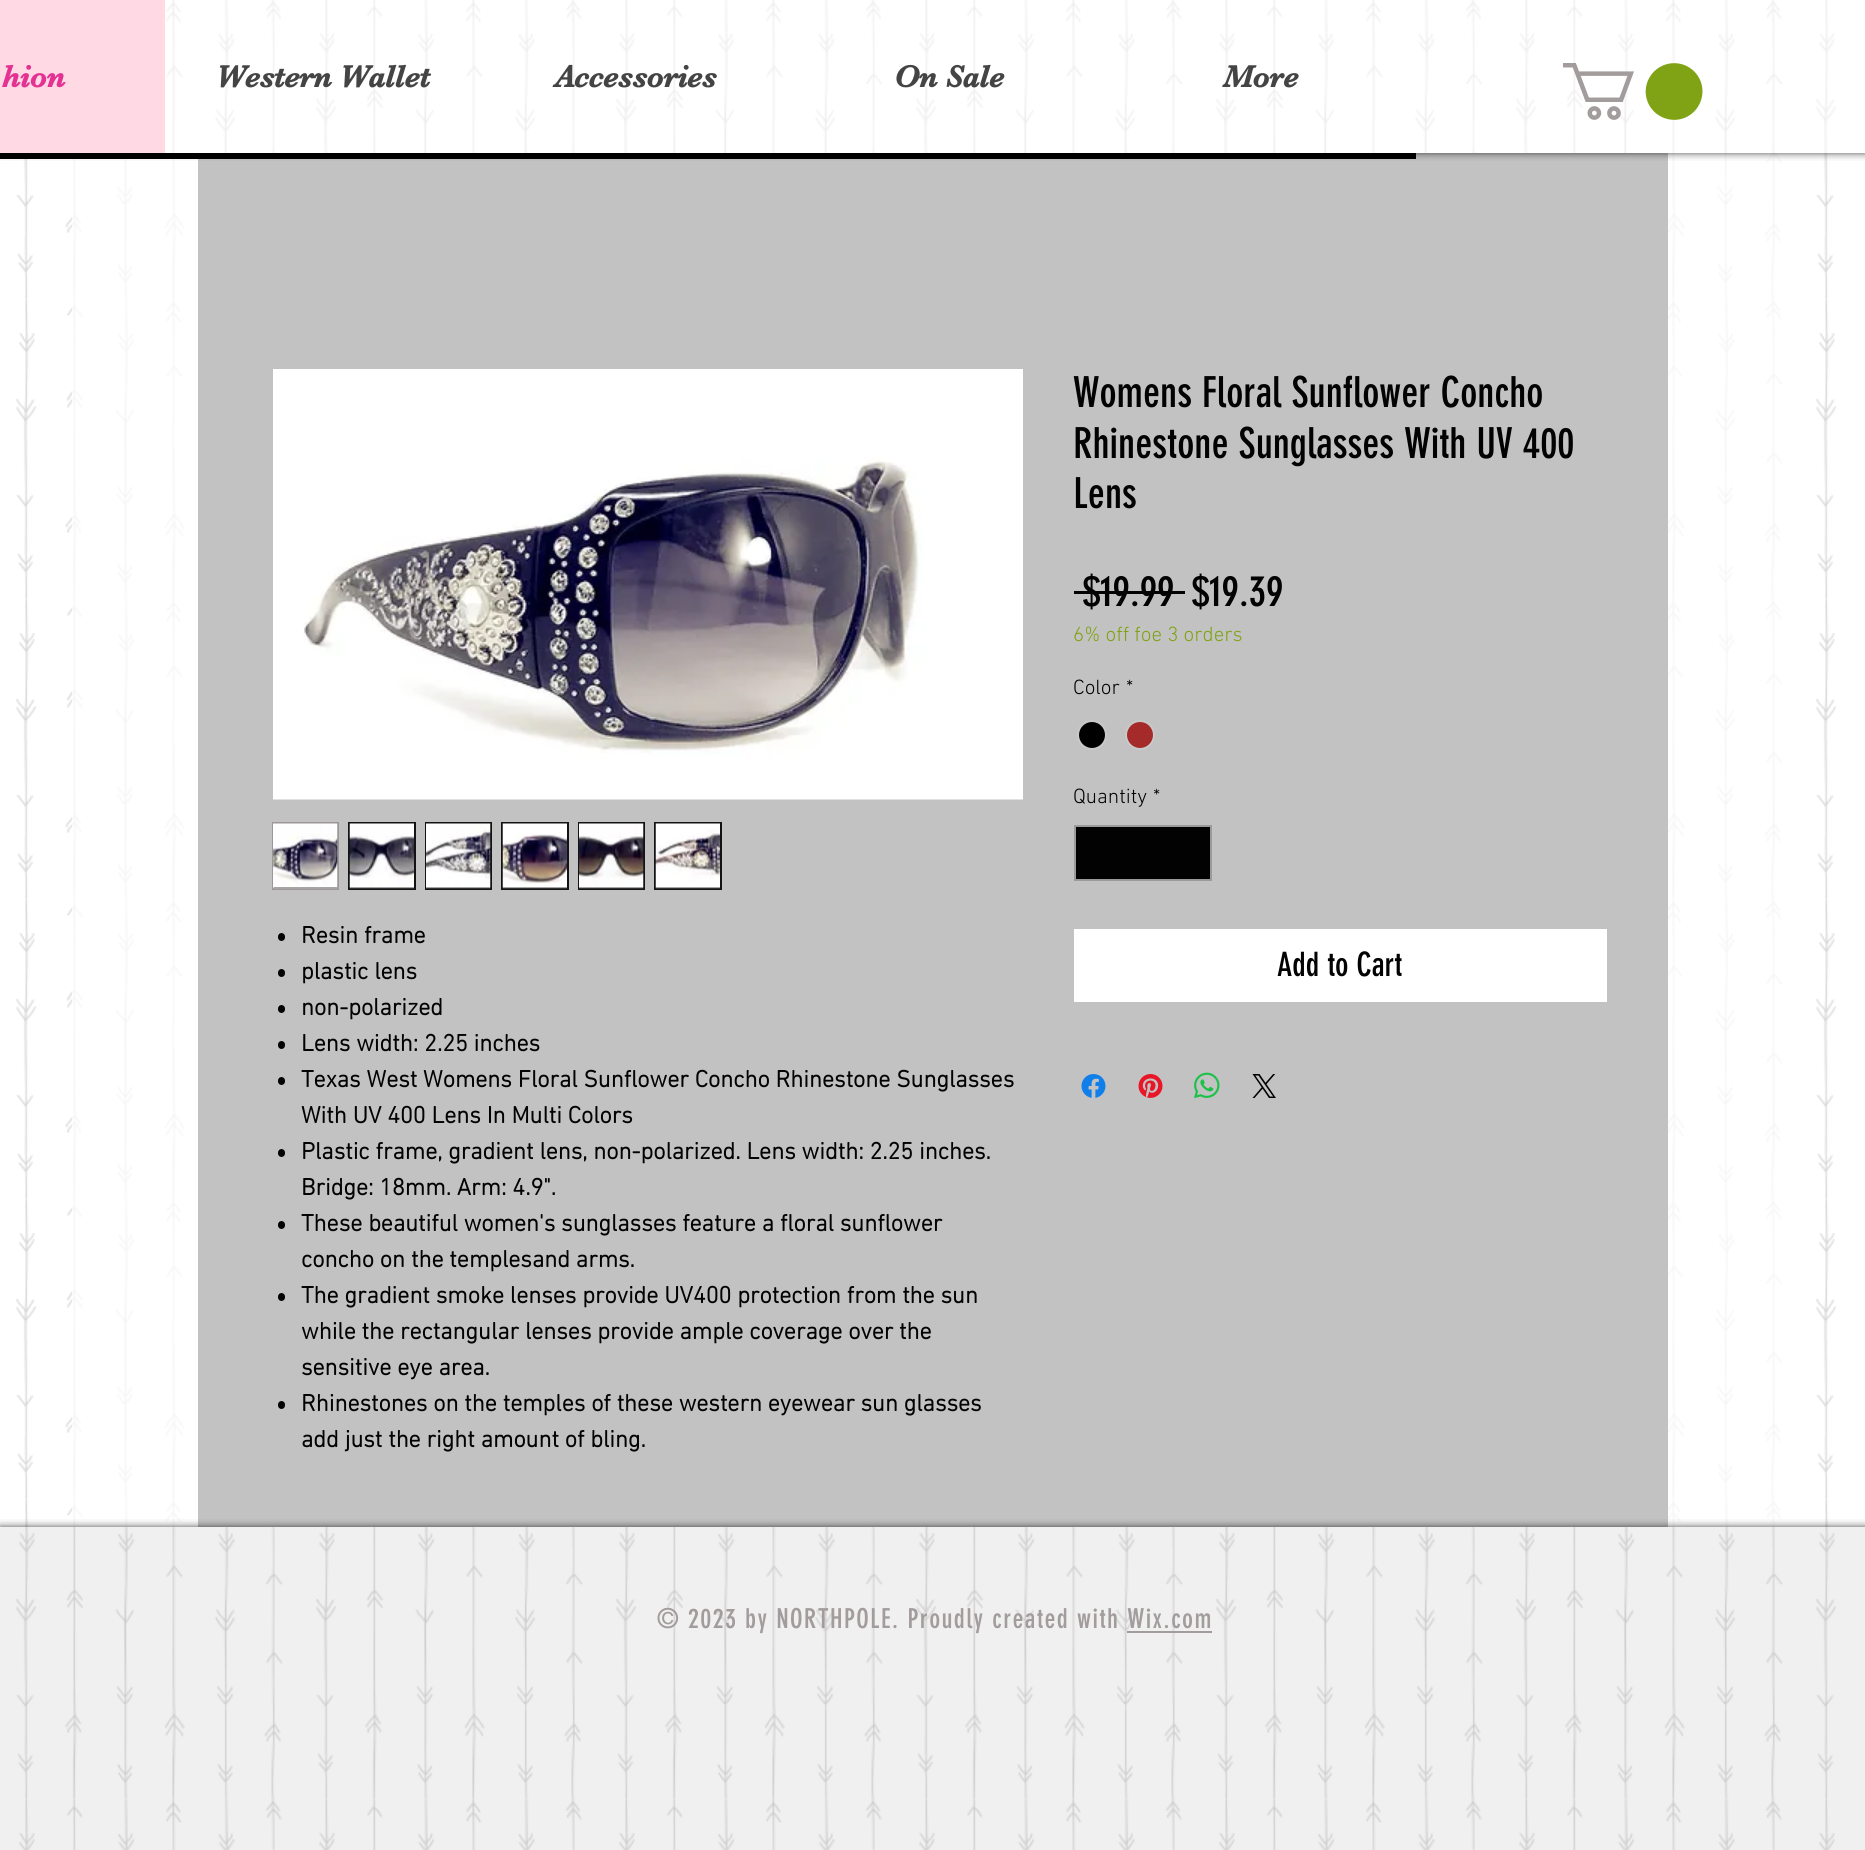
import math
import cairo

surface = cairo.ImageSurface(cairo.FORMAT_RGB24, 1865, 1850)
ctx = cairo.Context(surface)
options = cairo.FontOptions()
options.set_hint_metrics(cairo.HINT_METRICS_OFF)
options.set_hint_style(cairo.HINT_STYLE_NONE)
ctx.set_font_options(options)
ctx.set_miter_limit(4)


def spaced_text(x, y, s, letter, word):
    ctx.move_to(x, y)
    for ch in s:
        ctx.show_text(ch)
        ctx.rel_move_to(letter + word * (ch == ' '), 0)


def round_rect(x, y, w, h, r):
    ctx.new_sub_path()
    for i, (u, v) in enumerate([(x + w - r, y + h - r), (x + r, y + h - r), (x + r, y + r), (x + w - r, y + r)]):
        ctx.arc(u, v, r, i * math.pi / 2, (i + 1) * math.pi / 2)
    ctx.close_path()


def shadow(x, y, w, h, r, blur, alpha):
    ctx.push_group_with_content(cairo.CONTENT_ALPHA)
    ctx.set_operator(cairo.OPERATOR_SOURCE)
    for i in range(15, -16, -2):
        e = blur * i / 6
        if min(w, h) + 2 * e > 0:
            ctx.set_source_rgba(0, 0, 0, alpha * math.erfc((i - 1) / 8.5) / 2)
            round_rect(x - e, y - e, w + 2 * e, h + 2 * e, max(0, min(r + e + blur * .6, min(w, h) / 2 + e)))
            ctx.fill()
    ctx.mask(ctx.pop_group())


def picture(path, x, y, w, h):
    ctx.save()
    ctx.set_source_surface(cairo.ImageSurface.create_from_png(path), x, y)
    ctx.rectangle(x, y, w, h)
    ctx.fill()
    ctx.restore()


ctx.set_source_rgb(1, 1, 1)
ctx.paint()
picture("img1.png", 16, 0, 1820, 1850)
ctx.set_source_rgb(0.008, 0.008, 0.008)
ctx.rectangle(198, 153, 1470, 1374)
ctx.fill()
ctx.set_source_rgba(1, 1, 1, 0.76)
ctx.rectangle(72, 153, 1711, 1374)
ctx.fill()
ctx.save()
ctx.rectangle(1, 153, 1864, 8)
ctx.clip()
ctx.set_source_rgb(0, 0, 0)
shadow(0, 0, 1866, 153, 0, 4, 0.7)
ctx.restore()
ctx.set_source_rgba(1, 1, 1, 0.6)
ctx.rectangle(166, 0, 1670, 153)
ctx.fill()
ctx.set_source_rgb(0, 0, 0)
ctx.rectangle(0, 153, 1416, 6)
ctx.fill()
ctx.set_source_rgb(1, 0.851, 0.894)
ctx.rectangle(0, 0, 165, 153)
ctx.fill()
ctx.select_font_face("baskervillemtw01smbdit", cairo.FONT_SLANT_NORMAL, cairo.FONT_WEIGHT_BOLD)
ctx.set_font_size(31.5)
ctx.set_source_rgb(0.89, 0.196, 0.573)
ctx.move_to(2, 87)
ctx.show_text("hion")
ctx.set_source_rgb(0.267, 0.267, 0.267)
ctx.move_to(216, 87)
ctx.show_text("Western Wallet")
ctx.move_to(555, 87)
ctx.show_text("Accessories")
ctx.move_to(894, 87)
ctx.show_text("On Sale")
ctx.move_to(1223, 87)
ctx.show_text("More")
picture("img2.png", 1563, 63, 140, 57)
ctx.select_font_face("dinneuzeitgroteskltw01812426")
ctx.set_font_size(42)
ctx.set_source_rgb(0.008, 0.008, 0.008)
ctx.move_to(1073, 407)
ctx.show_text("Womens Floral Sunflower Concho")
ctx.move_to(1073, 458)
ctx.show_text("Rhinestone Sunglasses With UV 400")
ctx.move_to(1073, 508)
ctx.show_text("Lens")
ctx.move_to(1083, 606)
ctx.show_text("$19.99")
ctx.rectangle(1074, 591, 111, 3)
ctx.fill()
ctx.move_to(1192, 606)
ctx.show_text("$19.39")
ctx.select_font_face("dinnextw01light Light")
ctx.set_font_size(21)
ctx.set_source_rgb(0.502, 0.639, 0.082)
ctx.move_to(1073, 641)
ctx.show_text("6% off foe 3 orders")
ctx.set_source_rgb(0.008, 0.008, 0.008)
ctx.move_to(1073, 694)
ctx.show_text("Color")
ctx.move_to(1126, 694)
ctx.show_text("*")
ctx.set_source_rgb(0, 0, 0)
ctx.new_path()
ctx.arc(1092, 735, 14, 0, 2 * math.pi)
ctx.fill_preserve()
ctx.set_source_rgb(0.788, 0.788, 0.788)
ctx.stroke()
ctx.set_source_rgb(0.647, 0.165, 0.165)
ctx.arc(1140, 735, 14, 0, 2 * math.pi)
ctx.fill_preserve()
ctx.set_source_rgb(0.788, 0.788, 0.788)
ctx.stroke()
ctx.set_source_rgb(0.008, 0.008, 0.008)
ctx.move_to(1073, 803)
ctx.show_text("Quantity")
ctx.move_to(1153, 803)
ctx.show_text("*")
ctx.rectangle(1075, 826, 136, 54)
ctx.fill_preserve()
ctx.set_source_rgb(0.604, 0.604, 0.604)
ctx.stroke()
ctx.set_source_rgb(1, 1, 1)
ctx.rectangle(1074, 929, 533, 73)
ctx.fill()
ctx.select_font_face("dinneuzeitgroteskltw01812426")
ctx.set_font_size(33)
ctx.set_source_rgb(0.008, 0.008, 0.008)
ctx.move_to(1277, 976)
ctx.show_text("Add to Cart")
picture("img3.png", 1081, 1074, 25, 24)
picture("img4.png", 1138, 1074, 25, 24)
picture("img5.png", 1194, 1072, 26, 27)
picture("img6.png", 1252, 1074, 24, 24)
picture("img7.png", 273, 369, 750, 431)
ctx.set_source_rgb(0.078, 0.078, 0.078)
ctx.rectangle(274, 887, 63, 1)
ctx.fill()
ctx.rectangle(273, 823, 65, 66)
ctx.set_source_rgb(0.612, 0.592, 0.592)
ctx.stroke()
picture("img8.png", 273, 823, 65, 66)
ctx.set_source_rgb(0.078, 0.078, 0.078)
ctx.rectangle(348, 822, 68, 68)
ctx.fill()
picture("img9.png", 349, 823, 65, 66)
ctx.rectangle(425, 822, 67, 68)
ctx.fill()
picture("img10.png", 426, 823, 65, 66)
ctx.rectangle(501, 822, 68, 68)
ctx.fill()
picture("img11.png", 502, 823, 65, 66)
ctx.rectangle(578, 822, 67, 68)
ctx.fill()
picture("img12.png", 579, 823, 65, 66)
ctx.rectangle(654, 822, 68, 68)
ctx.fill()
picture("img13.png", 655, 823, 65, 66)
ctx.set_source_rgb(0.008, 0.008, 0.008)
round_rect(278, 933, 7, 8, 3.5)
ctx.fill()
ctx.select_font_face("dinnextw01light", cairo.FONT_SLANT_NORMAL, cairo.FONT_WEIGHT_BOLD)
ctx.set_font_size(24)
ctx.move_to(301, 943)
ctx.show_text("Resin frame")
round_rect(278, 969, 7, 8, 3.5)
ctx.fill()
ctx.move_to(301, 979)
ctx.show_text("plastic lens")
round_rect(278, 1005, 7, 8, 3.5)
ctx.fill()
ctx.move_to(301, 1015)
ctx.show_text("non-polarized")
round_rect(278, 1041, 7, 8, 3.5)
ctx.fill()
ctx.move_to(301, 1051)
ctx.show_text("Lens width: 2.25 inches")
round_rect(278, 1077, 7, 8, 3.5)
ctx.fill()
ctx.move_to(301, 1087)
ctx.show_text("Texas West Womens Floral Sunflower Concho Rhinestone Sunglasses")
ctx.move_to(301, 1123)
ctx.show_text("With UV 400 Lens In Multi Colors")
round_rect(278, 1149, 7, 8, 3.5)
ctx.fill()
ctx.move_to(301, 1159)
ctx.show_text("Plastic frame, gradient lens, non-polarized. Lens width: 2.25 inches.")
ctx.move_to(301, 1195)
ctx.show_text("Bridge: 18mm. Arm: 4.9\".")
round_rect(278, 1221, 7, 8, 3.5)
ctx.fill()
ctx.move_to(301, 1231)
ctx.show_text("These beautiful women's sunglasses feature a floral sunflower")
ctx.move_to(301, 1267)
ctx.show_text("concho on the templesand arms.")
round_rect(278, 1293, 7, 8, 3.5)
ctx.fill()
ctx.move_to(301, 1303)
ctx.show_text("The gradient smoke lenses provide UV400 protection from the sun")
ctx.move_to(301, 1339)
ctx.show_text("while the rectangular lenses provide ample coverage over the")
ctx.move_to(301, 1375)
ctx.show_text("sensitive eye area.")
round_rect(278, 1401, 7, 8, 3.5)
ctx.fill()
ctx.move_to(301, 1411)
ctx.show_text("Rhinestones on the temples of these western eyewear sun glasses")
ctx.move_to(301, 1447)
ctx.show_text("add just the right amount of bling.")
ctx.save()
ctx.rectangle(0, 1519, 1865, 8)
ctx.clip()
ctx.set_source_rgb(0, 0, 0)
shadow(0, 1527, 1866, 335, 0, 4, 0.7)
ctx.restore()
ctx.set_source_rgba(0.635, 0.612, 0.612, 0.15)
ctx.rectangle(0, 1527, 1865, 323)
ctx.fill()
ctx.select_font_face("dinneuzeitgroteskltw01812426")
ctx.set_font_size(27)
ctx.set_source_rgb(0.635, 0.612, 0.612)
spaced_text(657, 1628, "© 2023 by NORTHPOLE. Proudly created with Wix.com", 1.35, 0)
ctx.rectangle(1127, 1631, 85, 2)
ctx.fill()
surface.write_to_png("page.png")
